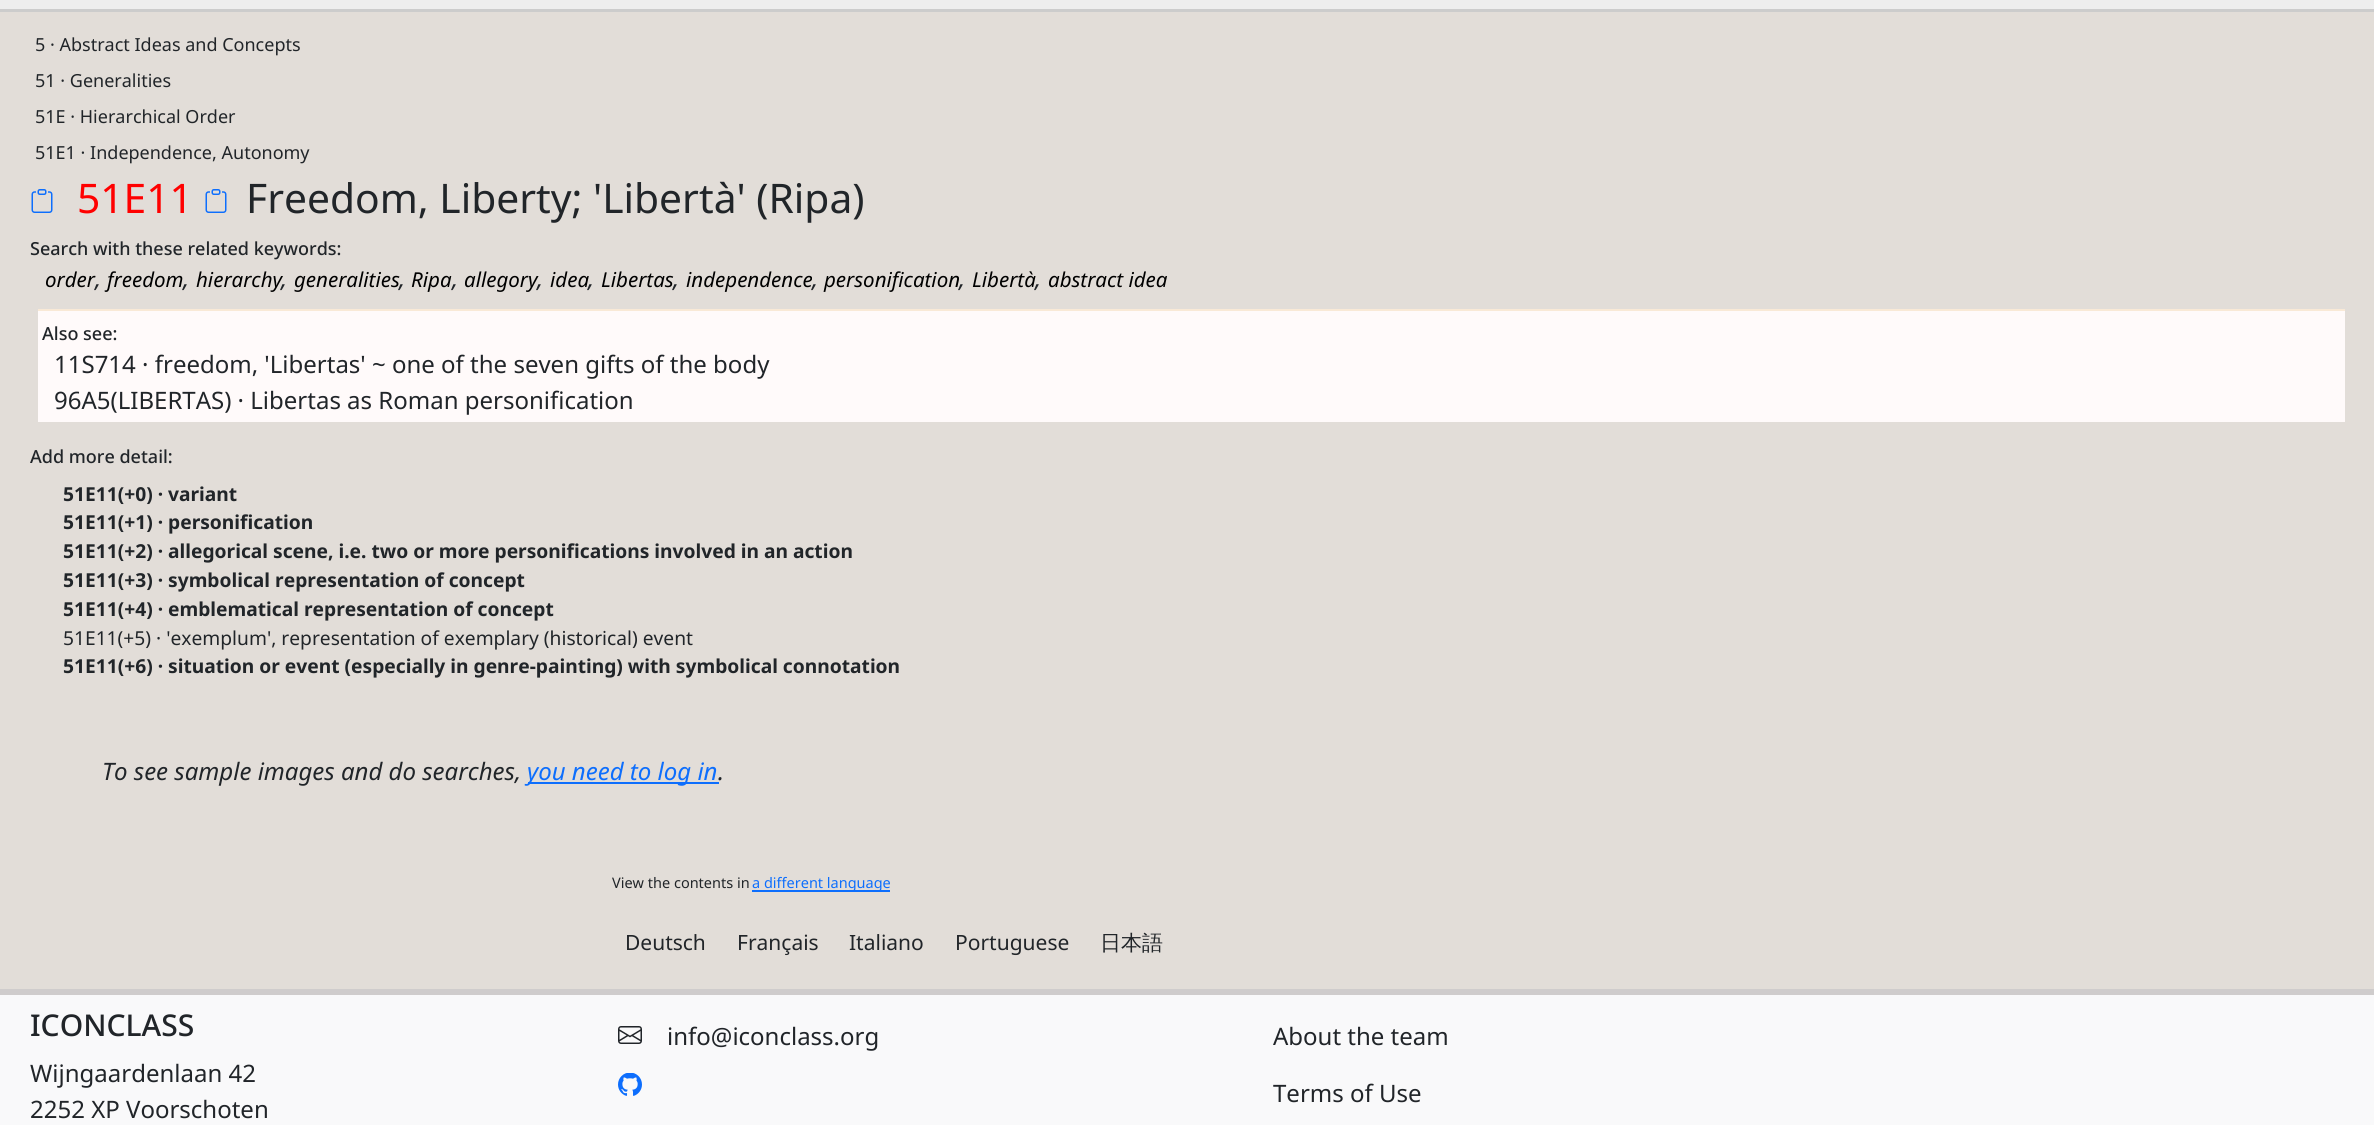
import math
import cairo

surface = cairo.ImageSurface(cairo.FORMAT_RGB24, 2374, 1125)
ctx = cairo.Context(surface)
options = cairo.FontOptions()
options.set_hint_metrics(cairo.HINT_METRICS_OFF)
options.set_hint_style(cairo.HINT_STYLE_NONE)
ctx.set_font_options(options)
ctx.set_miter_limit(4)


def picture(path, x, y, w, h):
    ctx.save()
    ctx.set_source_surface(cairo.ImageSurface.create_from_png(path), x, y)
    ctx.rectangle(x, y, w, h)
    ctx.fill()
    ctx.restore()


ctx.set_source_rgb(0.886, 0.867, 0.847)
ctx.paint()
ctx.set_source_rgb(0.933, 0.933, 0.933)
ctx.rectangle(0, 0, 2374, 9)
ctx.fill()
ctx.set_source_rgb(0.8, 0.8, 0.8)
ctx.rectangle(0, 9, 2374, 3)
ctx.fill()
ctx.select_font_face("Noto Sans")
ctx.set_font_size(18)
ctx.set_source_rgb(0.129, 0.145, 0.161)
ctx.move_to(35, 51)
ctx.show_text("5 · Abstract Ideas and Concepts")
ctx.move_to(35, 87)
ctx.show_text("51 · Generalities")
ctx.move_to(35, 123)
ctx.show_text("51E · Hierarchical Order")
ctx.move_to(35, 159)
ctx.show_text("51E1 · Independence, Autonomy")
picture("img1.png", 31, 189, 22, 24)
ctx.set_font_size(40.75)
ctx.set_source_rgb(1, 0, 0)
ctx.move_to(77, 213)
ctx.show_text("51E11")
picture("img1.png", 205, 189, 22, 24)
ctx.set_source_rgb(0.129, 0.145, 0.161)
ctx.move_to(246, 213)
ctx.show_text("Freedom, Liberty; 'Libertà' (Ripa)")
ctx.select_font_face("Noto Sans Medium")
ctx.set_font_size(18)
ctx.move_to(30, 255)
ctx.show_text("Search with these related keywords:")
ctx.select_font_face("Noto Sans", cairo.FONT_SLANT_ITALIC)
ctx.set_font_size(20.5)
ctx.set_source_rgb(0, 0, 0)
ctx.move_to(45, 287)
ctx.show_text("order")
ctx.move_to(107, 287)
ctx.show_text("freedom")
ctx.move_to(196, 287)
ctx.show_text("hierarchy")
ctx.move_to(294, 287)
ctx.show_text("generalities")
ctx.move_to(411, 287)
ctx.show_text("Ripa")
ctx.move_to(464, 287)
ctx.show_text("allegory")
ctx.move_to(550, 287)
ctx.show_text("idea")
ctx.move_to(601, 287)
ctx.show_text("Libertas")
ctx.move_to(686, 287)
ctx.show_text("independence")
ctx.move_to(824, 287)
ctx.show_text("personification")
ctx.move_to(972, 287)
ctx.show_text("Libertà")
ctx.move_to(1048, 287)
ctx.show_text("abstract idea")
ctx.set_font_size(24)
ctx.set_source_rgb(0.129, 0.145, 0.161)
ctx.move_to(95, 287)
ctx.show_text(",")
ctx.move_to(183, 287)
ctx.show_text(",")
ctx.move_to(281, 287)
ctx.show_text(",")
ctx.move_to(399, 287)
ctx.show_text(",")
ctx.move_to(452, 287)
ctx.show_text(",")
ctx.move_to(537, 287)
ctx.show_text(",")
ctx.move_to(588, 287)
ctx.show_text(",")
ctx.move_to(673, 287)
ctx.show_text(",")
ctx.move_to(812, 287)
ctx.show_text(",")
ctx.move_to(959, 287)
ctx.show_text(",")
ctx.move_to(1035, 287)
ctx.show_text(",")
ctx.set_source_rgb(1, 0.98, 0.98)
ctx.rectangle(38, 311, 2307, 111)
ctx.fill()
ctx.set_source_rgb(0.973, 0.914, 0.839)
ctx.rectangle(38, 309, 2307, 2)
ctx.fill()
ctx.select_font_face("Noto Sans Medium")
ctx.set_font_size(18)
ctx.set_source_rgb(0.129, 0.145, 0.161)
ctx.move_to(42, 340)
ctx.show_text("Also see:")
ctx.select_font_face("Noto Sans")
ctx.set_font_size(24)
ctx.move_to(54, 373)
ctx.show_text("11S714 · freedom, 'Libertas' ~ one of the seven gifts of the body")
ctx.move_to(54, 409)
ctx.show_text("96A5(LIBERTAS) · Libertas as Roman personification")
ctx.select_font_face("Noto Sans Medium")
ctx.set_font_size(18)
ctx.move_to(30, 463)
ctx.show_text("Add more detail:")
ctx.select_font_face("Noto Sans", cairo.FONT_SLANT_NORMAL, cairo.FONT_WEIGHT_BOLD)
ctx.set_font_size(19.2)
ctx.move_to(63, 501)
ctx.show_text("51E11(+0) · variant")
ctx.move_to(63, 529)
ctx.show_text("51E11(+1) · personification")
ctx.move_to(63, 558)
ctx.show_text("51E11(+2) · allegorical scene, i.e. two or more personifications involved in an action")
ctx.move_to(63, 587)
ctx.show_text("51E11(+3) · symbolical representation of concept")
ctx.move_to(63, 616)
ctx.show_text("51E11(+4) · emblematical representation of concept")
ctx.select_font_face("Noto Sans")
ctx.move_to(63, 645)
ctx.show_text("51E11(+5) · 'exemplum', representation of exemplary (historical) event")
ctx.select_font_face("Noto Sans", cairo.FONT_SLANT_NORMAL, cairo.FONT_WEIGHT_BOLD)
ctx.move_to(63, 673)
ctx.show_text("51E11(+6) · situation or event (especially in genre-painting) with symbolical connotation")
ctx.select_font_face("Noto Sans", cairo.FONT_SLANT_ITALIC)
ctx.set_font_size(24)
ctx.move_to(102, 780)
ctx.show_text("To see sample images and do searches,")
ctx.set_source_rgb(0.051, 0.431, 0.992)
ctx.rectangle(528, 782, 191, 2)
ctx.fill()
ctx.move_to(527, 780)
ctx.show_text("you need to log in")
ctx.set_source_rgb(0.129, 0.145, 0.161)
ctx.move_to(718, 780)
ctx.show_text(".")
ctx.select_font_face("Noto Sans")
ctx.set_font_size(14.5)
ctx.move_to(612, 888)
ctx.show_text("View the contents in")
ctx.set_source_rgb(0.051, 0.431, 0.992)
ctx.rectangle(752, 890, 138, 2)
ctx.fill()
ctx.move_to(752, 888)
ctx.show_text("a different language")
ctx.set_font_size(21)
ctx.set_source_rgb(0.129, 0.145, 0.161)
ctx.move_to(625, 950)
ctx.show_text("Deutsch")
ctx.move_to(737, 950)
ctx.show_text("Français")
ctx.move_to(849, 950)
ctx.show_text("Italiano")
ctx.move_to(955, 950)
ctx.show_text("Portuguese")
ctx.select_font_face("WenQuanYi Zen Hei Medium")
ctx.move_to(1100, 950)
ctx.show_text("日本語")
ctx.set_source_rgb(0.973, 0.976, 0.98)
ctx.rectangle(0, 995, 2374, 130)
ctx.fill()
ctx.set_source_rgb(0.812, 0.8, 0.8)
ctx.rectangle(0, 989, 2374, 6)
ctx.fill()
ctx.select_font_face("Noto Sans Medium")
ctx.set_font_size(30)
ctx.set_source_rgb(0.129, 0.145, 0.161)
ctx.move_to(30, 1036)
ctx.show_text("ICONCLASS")
ctx.select_font_face("Noto Sans")
ctx.set_font_size(24)
ctx.move_to(30, 1082)
ctx.show_text("Wijngaardenlaan 42")
ctx.move_to(30, 1118)
ctx.show_text("2252 XP Voorschoten")
picture("img2.png", 618, 1026, 24, 18)
ctx.move_to(667, 1045)
ctx.show_text("info@iconclass.org")
picture("img3.png", 618, 1073, 24, 23)
ctx.move_to(1273, 1045)
ctx.show_text("About the team")
ctx.move_to(1273, 1102)
ctx.show_text("Terms of Use")
surface.write_to_png("page.png")
